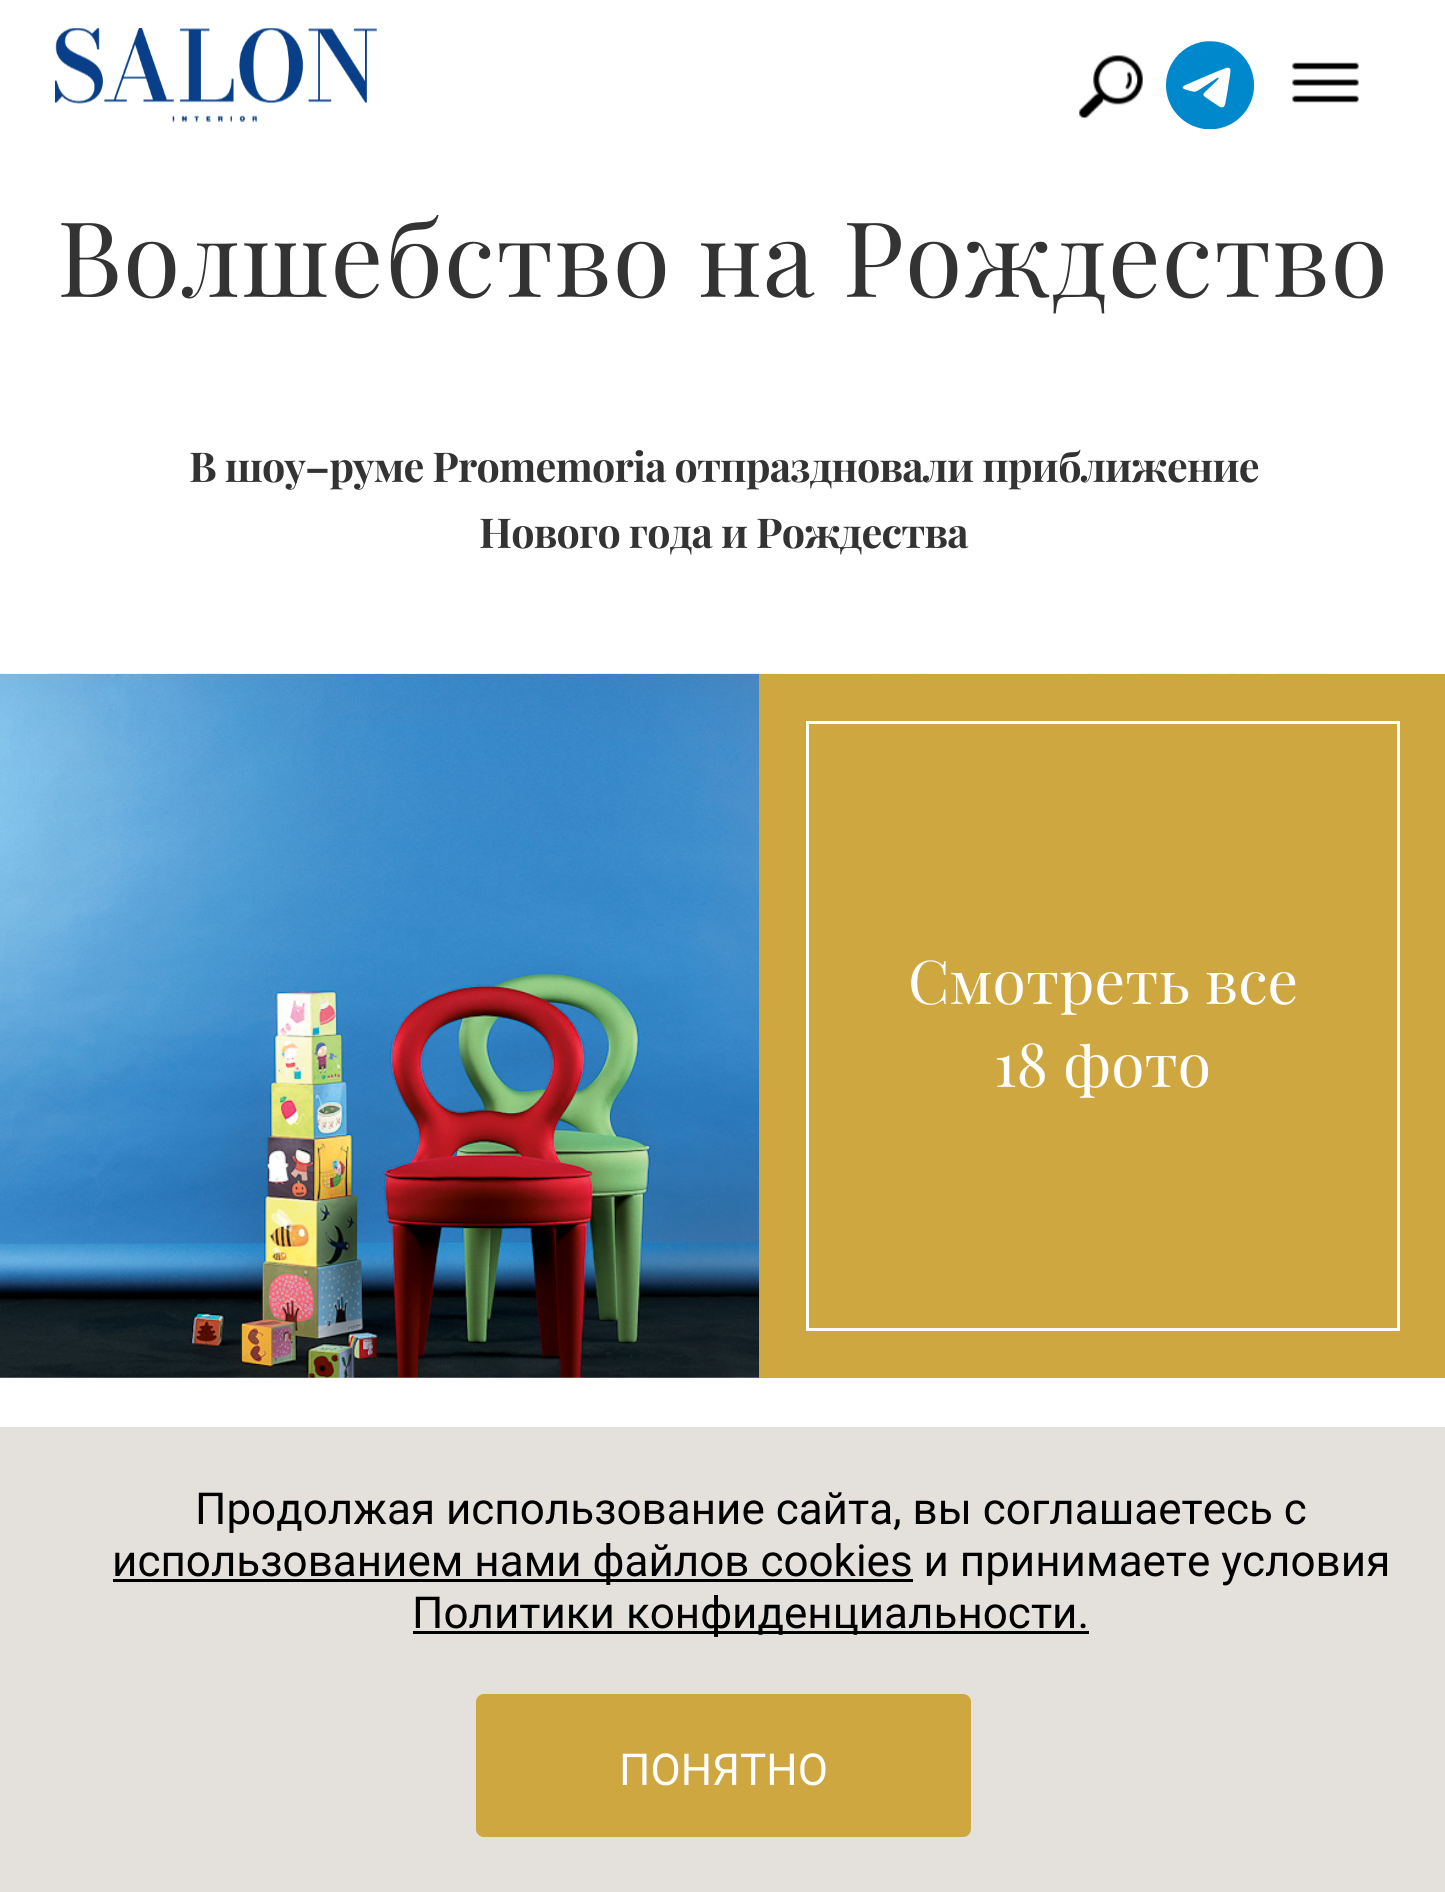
import math
import cairo

surface = cairo.ImageSurface(cairo.FORMAT_RGB24, 1445, 1892)
ctx = cairo.Context(surface)
options = cairo.FontOptions()
options.set_hint_metrics(cairo.HINT_METRICS_OFF)
options.set_hint_style(cairo.HINT_STYLE_NONE)
ctx.set_font_options(options)
ctx.set_miter_limit(4)


def spaced_text(x, y, s, letter, word):
    ctx.move_to(x, y)
    for ch in s:
        ctx.show_text(ch)
        ctx.rel_move_to(letter + word * (ch == ' '), 0)


def round_rect(x, y, w, h, r):
    ctx.new_sub_path()
    for i, (u, v) in enumerate([(x + w - r, y + h - r), (x + r, y + h - r), (x + r, y + r), (x + w - r, y + r)]):
        ctx.arc(u, v, r, i * math.pi / 2, (i + 1) * math.pi / 2)
    ctx.close_path()


def picture(path, x, y, w, h):
    ctx.save()
    ctx.set_source_surface(cairo.ImageSurface.create_from_png(path), x, y)
    ctx.rectangle(x, y, w, h)
    ctx.fill()
    ctx.restore()


ctx.set_source_rgb(1, 1, 1)
ctx.paint()
picture("img1.png", 55, 28, 322, 94)
picture("img2.png", 1166, 41, 88, 88)
picture("img3.png", 1292, 62, 67, 41)
picture("img4.png", 1079, 55, 64, 64)
ctx.select_font_face("Playfair Display")
ctx.set_font_size(104.5)
ctx.set_source_rgb(0.2, 0.2, 0.2)
spaced_text(57, 297, "Волшебство на Рождество", 1, 0)
ctx.select_font_face("Playfair Display", cairo.FONT_SLANT_NORMAL, cairo.FONT_WEIGHT_BOLD)
ctx.set_font_size(41.25)
spaced_text(189, 482, "В шоу–руме Promemoria отпраздновали приближение", -0.8, 0)
spaced_text(479, 548, "Нового года и Рождества", -0.8, 0)
picture("img5.png", 0, 673, 1445, 705)
picture("img6.png", 0, 673, 759, 705)
ctx.set_source_rgb(0.808, 0.655, 0.251)
ctx.rectangle(759, 674, 686, 704)
ctx.fill()
ctx.rectangle(807.5, 722.5, 591, 607)
ctx.set_source_rgb(1, 1, 1)
ctx.set_line_width(3)
ctx.stroke()
ctx.select_font_face("Playfair Display")
ctx.set_font_size(60.5)
ctx.move_to(908, 1004)
ctx.show_text("Смотреть все")
ctx.move_to(994, 1087)
ctx.show_text("18 фото")
ctx.set_source_rgb(0.894, 0.878, 0.863)
ctx.rectangle(0, 1427, 1445, 465)
ctx.fill()
ctx.select_font_face("Roboto")
ctx.set_font_size(44)
ctx.set_source_rgb(0, 0, 0)
ctx.move_to(195, 1524)
ctx.show_text("Продолжая использование сайта, вы соглашаетесь c")
ctx.rectangle(113, 1579, 800, 3)
ctx.fill()
ctx.move_to(112, 1576)
ctx.show_text("использованием нами файлов cookies и принимаете условия")
ctx.rectangle(413, 1631, 676, 3)
ctx.fill()
ctx.move_to(412, 1628)
ctx.show_text("Политики конфиденциальности.")
ctx.set_source_rgb(0.808, 0.655, 0.251)
round_rect(476, 1694, 495, 143, 8)
ctx.fill()
ctx.set_source_rgb(1, 1, 1)
ctx.move_to(619, 1785)
ctx.show_text("ПОНЯТНО")
surface.write_to_png("page.png")
